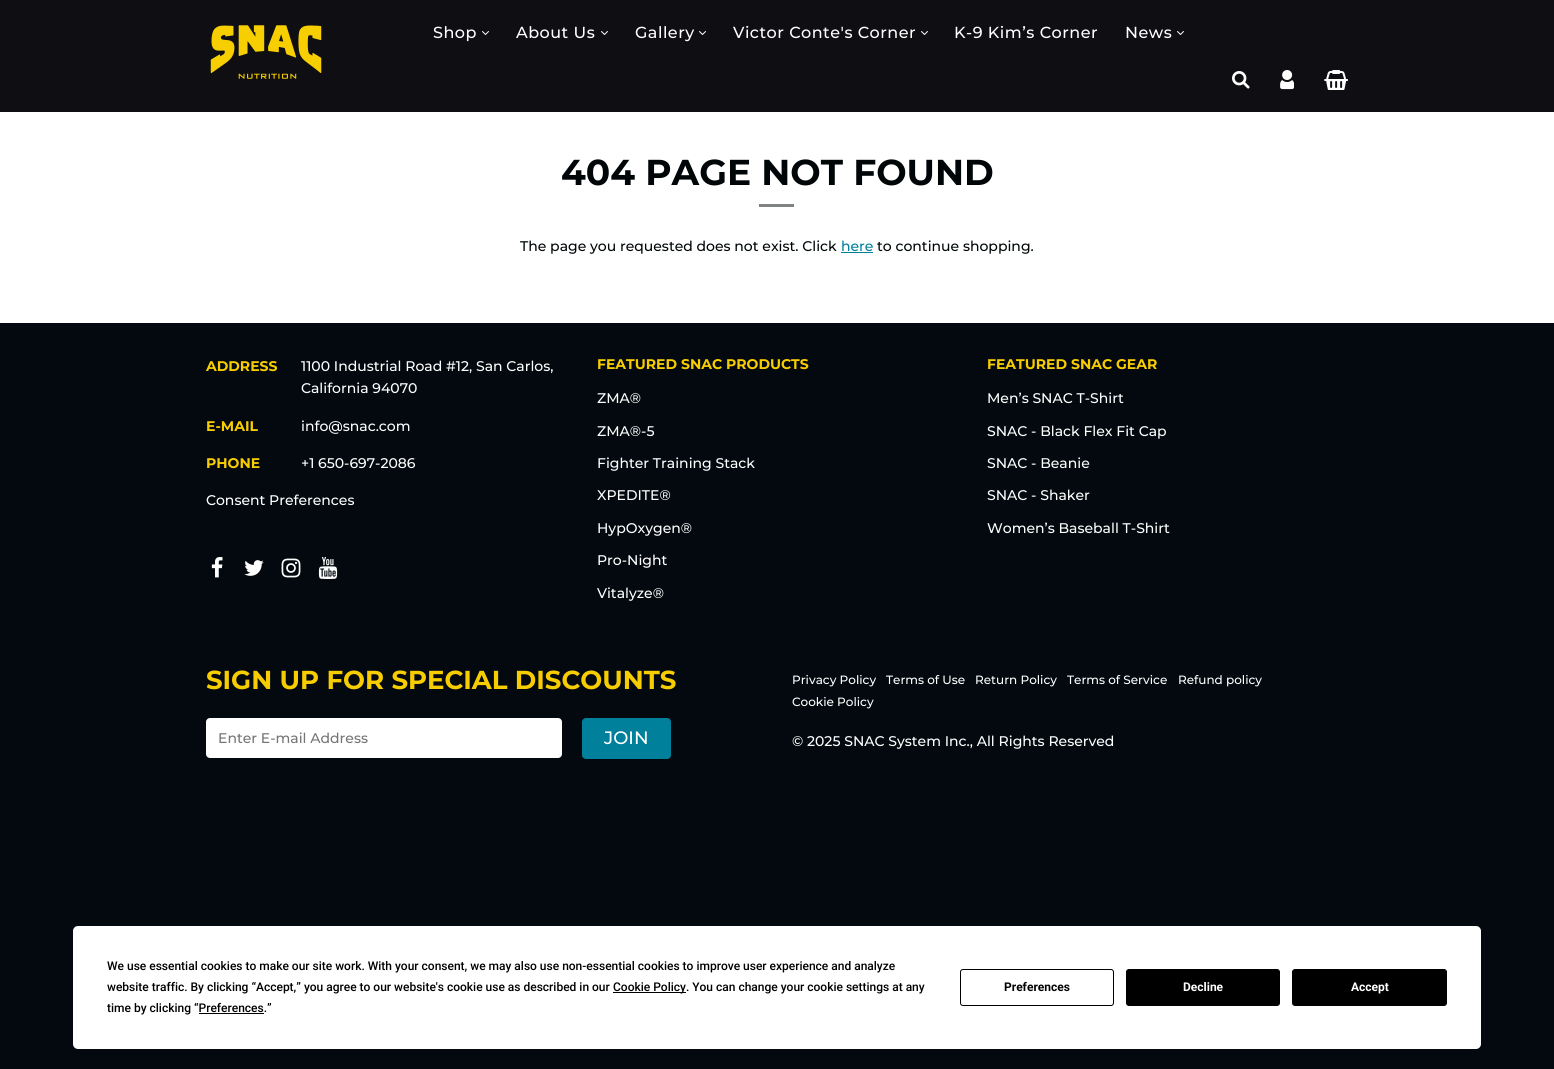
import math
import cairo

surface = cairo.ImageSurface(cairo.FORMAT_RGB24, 1554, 1069)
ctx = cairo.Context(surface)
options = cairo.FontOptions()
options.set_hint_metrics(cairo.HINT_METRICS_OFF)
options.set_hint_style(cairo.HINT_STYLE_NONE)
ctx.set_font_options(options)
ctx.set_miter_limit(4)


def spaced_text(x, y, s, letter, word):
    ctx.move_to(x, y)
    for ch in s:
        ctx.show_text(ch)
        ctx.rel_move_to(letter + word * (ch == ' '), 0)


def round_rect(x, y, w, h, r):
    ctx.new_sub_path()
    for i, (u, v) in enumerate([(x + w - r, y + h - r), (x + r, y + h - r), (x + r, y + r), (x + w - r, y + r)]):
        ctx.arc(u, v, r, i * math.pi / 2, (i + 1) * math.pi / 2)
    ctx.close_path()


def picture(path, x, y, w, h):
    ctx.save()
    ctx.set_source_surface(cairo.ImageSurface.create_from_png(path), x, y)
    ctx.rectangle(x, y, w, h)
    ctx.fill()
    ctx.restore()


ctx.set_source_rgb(0.012, 0.039, 0.059)
ctx.paint()
ctx.set_source_rgb(1, 1, 1)
ctx.rectangle(0, 112, 1554, 211)
ctx.fill()
ctx.set_source_rgb(0.059, 0.059, 0.078)
ctx.rectangle(0, 0, 1554, 112)
ctx.fill()
picture("img1.png", 210, 25, 112, 54)
ctx.select_font_face("Montserrat Medium")
ctx.set_font_size(16)
ctx.set_source_rgb(1, 1, 1)
spaced_text(433, 38, "Shop", 0.5, 0)
picture("img2.png", 482, 31, 7, 4)
spaced_text(516, 38, "About Us", 0.5, 0)
picture("img2.png", 601, 31, 7, 4)
spaced_text(635, 38, "Gallery", 0.5, 0)
picture("img2.png", 699, 31, 7, 4)
spaced_text(733, 38, "Victor Conte's Corner", 0.5, 0)
picture("img2.png", 921, 31, 7, 4)
spaced_text(954, 38, "K-9 Kim’s Corner", 0.5, 0)
spaced_text(1125, 38, "News", 0.5, 0)
picture("img2.png", 1177, 31, 7, 4)
picture("img3.png", 1232, 71, 18, 18)
picture("img4.png", 1280, 70, 14, 20)
picture("img5.png", 1324, 70, 24, 20)
ctx.select_font_face("Montserrat", cairo.FONT_SLANT_NORMAL, cairo.FONT_WEIGHT_BOLD)
ctx.set_font_size(36)
ctx.set_source_rgb(0, 0.024, 0.035)
ctx.move_to(561, 185)
ctx.show_text("404 PAGE NOT FOUND")
ctx.set_source_rgb(0.502, 0.514, 0.518)
ctx.rectangle(759, 204, 35, 3)
ctx.fill()
ctx.select_font_face("Montserrat Medium")
ctx.set_font_size(14)
ctx.set_source_rgb(0, 0.024, 0.035)
ctx.move_to(520, 251)
ctx.show_text("The page you requested does not exist. Click")
ctx.set_source_rgb(0, 0.502, 0.604)
ctx.move_to(841, 251)
ctx.show_text("here")
ctx.rectangle(841, 252, 32, 1)
ctx.fill()
ctx.set_source_rgb(0, 0.024, 0.035)
ctx.move_to(877, 251)
ctx.show_text("to continue shopping.")
ctx.select_font_face("Montserrat", cairo.FONT_SLANT_NORMAL, cairo.FONT_WEIGHT_BOLD)
ctx.set_source_rgb(0.969, 0.804, 0)
ctx.move_to(206, 371)
ctx.show_text("ADDRESS")
ctx.select_font_face("Montserrat Medium")
ctx.set_source_rgb(1, 1, 1)
ctx.move_to(301, 371)
ctx.show_text("1100 Industrial Road #12, San Carlos,")
ctx.move_to(301, 393)
ctx.show_text("California 94070")
ctx.select_font_face("Montserrat", cairo.FONT_SLANT_NORMAL, cairo.FONT_WEIGHT_BOLD)
ctx.set_source_rgb(0.969, 0.804, 0)
ctx.move_to(206, 431)
ctx.show_text("E-MAIL")
ctx.select_font_face("Montserrat Medium")
ctx.set_source_rgb(1, 1, 1)
ctx.move_to(301, 431)
ctx.show_text("info@snac.com")
ctx.select_font_face("Montserrat", cairo.FONT_SLANT_NORMAL, cairo.FONT_WEIGHT_BOLD)
ctx.set_source_rgb(0.969, 0.804, 0)
ctx.move_to(206, 468)
ctx.show_text("PHONE")
ctx.select_font_face("Montserrat Medium")
ctx.set_source_rgb(1, 1, 1)
ctx.move_to(301, 468)
ctx.show_text("+1 650-697-2086")
ctx.move_to(206, 505)
ctx.show_text("Consent Preferences")
picture("img6.png", 211, 557, 12, 21)
picture("img7.png", 244, 560, 20, 16)
picture("img8.png", 281, 558, 20, 20)
picture("img9.png", 318, 557, 20, 22)
ctx.select_font_face("Montserrat", cairo.FONT_SLANT_NORMAL, cairo.FONT_WEIGHT_BOLD)
ctx.set_source_rgb(0.969, 0.804, 0)
ctx.move_to(597, 369)
ctx.show_text("FEATURED SNAC PRODUCTS")
ctx.select_font_face("Montserrat Medium")
ctx.set_source_rgb(1, 1, 1)
ctx.move_to(597, 403)
ctx.show_text("ZMA®")
ctx.move_to(597, 436)
ctx.show_text("ZMA®-5")
ctx.move_to(597, 468)
ctx.show_text("Fighter Training Stack")
ctx.move_to(597, 500)
ctx.show_text("XPEDITE®")
ctx.move_to(597, 533)
ctx.show_text("HypOxygen®")
ctx.move_to(597, 565)
ctx.show_text("Pro-Night")
ctx.move_to(597, 598)
ctx.show_text("Vitalyze®")
ctx.select_font_face("Montserrat", cairo.FONT_SLANT_NORMAL, cairo.FONT_WEIGHT_BOLD)
ctx.set_source_rgb(0.969, 0.804, 0)
ctx.move_to(987, 369)
ctx.show_text("FEATURED SNAC GEAR")
ctx.select_font_face("Montserrat Medium")
ctx.set_source_rgb(1, 1, 1)
ctx.move_to(987, 403)
ctx.show_text("Men’s SNAC T-Shirt")
ctx.move_to(987, 436)
ctx.show_text("SNAC - Black Flex Fit Cap")
ctx.move_to(987, 468)
ctx.show_text("SNAC - Beanie")
ctx.move_to(987, 500)
ctx.show_text("SNAC - Shaker")
ctx.move_to(987, 533)
ctx.show_text("Women’s Baseball T-Shirt")
ctx.select_font_face("Montserrat", cairo.FONT_SLANT_NORMAL, cairo.FONT_WEIGHT_BOLD)
ctx.set_font_size(26)
ctx.set_source_rgb(0.969, 0.804, 0)
ctx.move_to(206, 689)
ctx.show_text("SIGN UP FOR SPECIAL DISCOUNTS")
ctx.set_source_rgb(1, 1, 1)
round_rect(206, 718, 356, 40, 4)
ctx.fill()
ctx.select_font_face("Montserrat Medium")
ctx.set_font_size(14)
ctx.set_source_rgb(0.459, 0.459, 0.459)
ctx.move_to(218, 743)
ctx.show_text("Enter E-mail Address")
ctx.set_source_rgb(0, 0.502, 0.604)
round_rect(582, 718, 89, 41, 4)
ctx.fill()
ctx.set_font_size(18)
ctx.set_source_rgb(1, 1, 1)
ctx.move_to(604, 744)
ctx.show_text("JOIN")
ctx.set_font_size(12)
ctx.move_to(792, 684)
ctx.show_text("Privacy Policy")
ctx.move_to(886, 684)
ctx.show_text("Terms of Use")
ctx.move_to(975, 684)
ctx.show_text("Return Policy")
ctx.move_to(1067, 684)
ctx.show_text("Terms of Service")
ctx.move_to(1178, 684)
ctx.show_text("Refund policy")
ctx.move_to(792, 706)
ctx.show_text("Cookie Policy")
ctx.set_font_size(14)
ctx.move_to(792, 746)
ctx.show_text("© 2025 SNAC System Inc., All Rights Reserved")
round_rect(73, 926, 1408, 123, 5)
ctx.fill()
ctx.select_font_face("Roboto Medium")
ctx.set_font_size(12)
ctx.set_source_rgb(0, 0, 0)
ctx.move_to(107, 970)
ctx.show_text("We use essential cookies to make our site work. With your consent, we may also use non-essential cookies to improve user experience and analyze")
ctx.move_to(107, 991)
ctx.show_text("website traffic. By clicking “Accept,” you agree to our website's cookie use as described in our")
ctx.rectangle(613, 992, 73, 1)
ctx.fill()
ctx.move_to(613, 991)
ctx.show_text("Cookie Policy. You can change your cookie settings at any")
ctx.move_to(107, 1012)
ctx.show_text("time by clicking “Preferences.”")
ctx.rectangle(199, 1013, 65, 1)
ctx.fill()
round_rect(960.5, 969.5, 153, 36, 2.5)
ctx.set_line_width(1)
ctx.stroke()
ctx.select_font_face("Roboto", cairo.FONT_SLANT_NORMAL, cairo.FONT_WEIGHT_BOLD)
ctx.move_to(1004, 991)
ctx.show_text("Preferences")
round_rect(1126.5, 969.5, 153, 36, 2.5)
ctx.fill_preserve()
ctx.stroke()
ctx.set_source_rgb(1, 1, 1)
ctx.move_to(1183, 991)
ctx.show_text("Decline")
ctx.set_source_rgb(0, 0, 0)
round_rect(1292.5, 969.5, 154, 36, 2.5)
ctx.fill_preserve()
ctx.stroke()
ctx.set_source_rgb(1, 1, 1)
ctx.move_to(1351, 991)
ctx.show_text("Accept")
surface.write_to_png("page.png")
